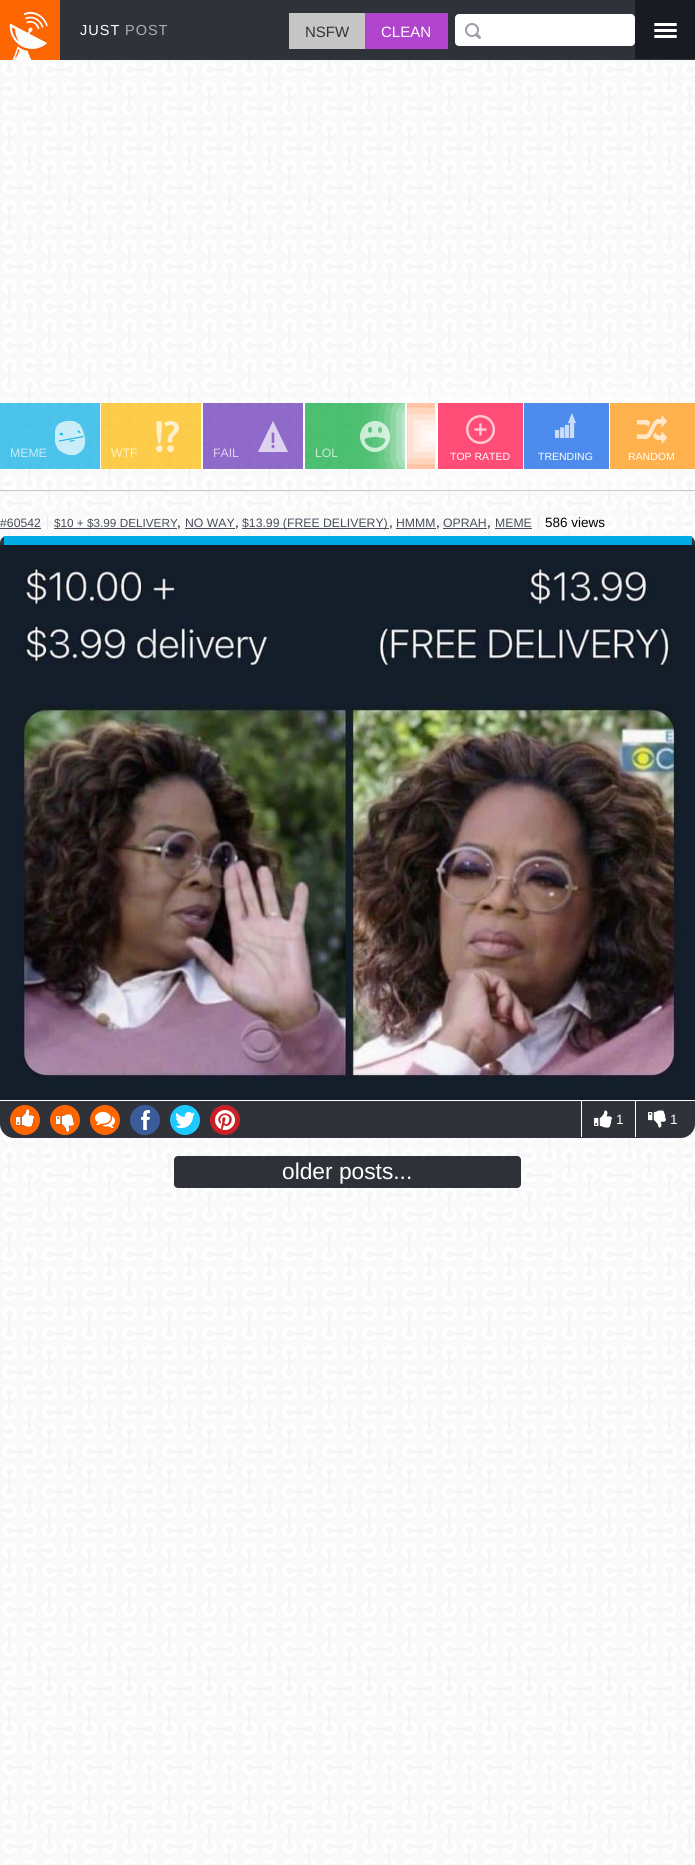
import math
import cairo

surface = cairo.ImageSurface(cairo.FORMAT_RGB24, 695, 1865)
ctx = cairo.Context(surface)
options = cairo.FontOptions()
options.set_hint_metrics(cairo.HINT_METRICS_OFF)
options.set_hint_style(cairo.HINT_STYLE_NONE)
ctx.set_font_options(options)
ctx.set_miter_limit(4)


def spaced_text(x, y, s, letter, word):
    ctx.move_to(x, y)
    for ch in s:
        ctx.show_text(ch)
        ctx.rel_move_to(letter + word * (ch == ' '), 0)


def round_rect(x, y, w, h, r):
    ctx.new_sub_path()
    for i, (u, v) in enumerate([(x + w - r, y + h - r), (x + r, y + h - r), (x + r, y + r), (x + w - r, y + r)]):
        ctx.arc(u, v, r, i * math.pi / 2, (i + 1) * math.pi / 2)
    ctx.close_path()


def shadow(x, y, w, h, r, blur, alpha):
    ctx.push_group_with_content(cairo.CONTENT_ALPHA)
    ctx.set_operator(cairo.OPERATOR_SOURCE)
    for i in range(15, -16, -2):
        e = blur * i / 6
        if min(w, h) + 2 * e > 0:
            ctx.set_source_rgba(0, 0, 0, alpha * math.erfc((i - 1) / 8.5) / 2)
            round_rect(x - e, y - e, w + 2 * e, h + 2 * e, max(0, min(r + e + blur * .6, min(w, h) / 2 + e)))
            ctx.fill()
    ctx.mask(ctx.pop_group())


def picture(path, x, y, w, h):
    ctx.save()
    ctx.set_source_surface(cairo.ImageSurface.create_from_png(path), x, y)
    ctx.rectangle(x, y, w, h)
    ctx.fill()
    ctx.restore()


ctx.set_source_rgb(1, 1, 1)
ctx.paint()
picture("img1.png", 0, 60, 695, 1805)
ctx.set_source_rgb(0.184, 0.196, 0.224)
ctx.rectangle(60, 0, 635, 60)
ctx.fill()
picture("img2.png", 0, 0, 60, 60)
ctx.select_font_face("Liberation Sans")
ctx.set_font_size(14.5)
ctx.set_source_rgb(1, 1, 1)
spaced_text(80, 35, "JUST", 1, 0)
ctx.set_source_rgb(0.675, 0.678, 0.71)
spaced_text(125, 35, "POST", 1, 0)
ctx.set_source_rgb(0.776, 0.776, 0.78)
ctx.rectangle(289, 13, 76, 36)
ctx.fill()
ctx.set_font_size(15)
ctx.set_source_rgb(0.2, 0.2, 0.2)
ctx.move_to(305, 37)
ctx.show_text("NSFW")
ctx.set_source_rgb(0.694, 0.267, 0.8)
ctx.rectangle(365, 13, 83, 36)
ctx.fill()
ctx.set_source_rgb(1, 1, 1)
ctx.move_to(381, 37)
ctx.show_text("CLEAN")
round_rect(455, 14, 180, 32, 4)
ctx.fill()
picture("img3.png", 465, 23, 16, 16)
ctx.set_source_rgb(0.094, 0.106, 0.133)
ctx.rectangle(635, 0, 60, 59)
ctx.fill()
picture("img4.png", 654, 23, 23, 15)
ctx.set_source_rgb(0.776, 0.776, 0.78)
ctx.rectangle(0, 490, 695, 1)
ctx.fill()
ctx.set_source_rgba(0, 0.671, 0.89, 0.7)
ctx.rectangle(0, 403, 100, 66)
ctx.fill()
ctx.set_font_size(12.25)
ctx.set_source_rgb(0.788, 0.929, 0.976)
ctx.move_to(10, 457)
ctx.show_text("MEME")
picture("img5.png", 55, 421, 30, 34)
ctx.set_source_rgba(1, 0.725, 0, 0.7)
ctx.rectangle(101, 403, 100, 66)
ctx.fill()
ctx.set_source_rgb(1, 0.941, 0.788)
ctx.move_to(111, 457)
ctx.show_text("WTF")
picture("img6.png", 156, 421, 23, 31)
ctx.set_source_rgba(0.388, 0.176, 0.714, 0.7)
ctx.rectangle(203, 403, 100, 66)
ctx.fill()
ctx.set_source_rgb(0.871, 0.824, 0.937)
ctx.move_to(213, 457)
ctx.show_text("FAIL")
picture("img7.png", 258, 421, 30, 31)
ctx.set_source_rgba(0.008, 0.651, 0.208, 0.7)
ctx.rectangle(305, 403, 100, 66)
ctx.fill()
picture("img8.png", 360, 421, 30, 31)
ctx.set_source_rgb(0.788, 0.925, 0.831)
ctx.move_to(315, 457)
ctx.show_text("LOL")
ctx.set_source_rgba(1, 0.353, 0, 0.7)
ctx.rectangle(407, 403, 28, 66)
ctx.fill()
ctx.set_source_rgb(0.918, 0.918, 0.918)
ctx.rectangle(538, 516, 1, 14)
ctx.fill()
ctx.set_source_rgb(1, 1, 1)
shadow(399, 405, 254, 62, 0, 17.5, 1)
ctx.set_source_rgb(1, 1, 1)
ctx.rectangle(437, 403, 173, 66)
ctx.fill()
ctx.set_source_rgb(1, 0.302, 0.467)
ctx.rectangle(438, 403, 85, 66)
ctx.fill()
picture("img9.png", 466, 415, 29, 29)
ctx.set_font_size(10.5)
ctx.set_source_rgb(1, 1, 1)
ctx.move_to(450, 460)
ctx.show_text("TOP RATED")
ctx.set_source_rgb(0.302, 0.549, 0.922)
ctx.rectangle(524, 403, 85, 66)
ctx.fill()
picture("img10.png", 555, 413, 21, 25)
ctx.set_source_rgb(1, 1, 1)
ctx.move_to(538, 460)
ctx.show_text("TRENDING")
ctx.set_source_rgb(1, 0.694, 0.302)
ctx.rectangle(610, 403, 85, 66)
ctx.fill()
picture("img11.png", 637, 415, 30, 29)
ctx.set_source_rgb(1, 1, 1)
ctx.move_to(628, 460)
ctx.show_text("RANDOM")
ctx.set_font_size(12.25)
ctx.set_source_rgb(0.282, 0.306, 0.357)
ctx.move_to(0, 527)
ctx.show_text("#60542")
ctx.set_source_rgb(0.918, 0.918, 0.918)
ctx.rectangle(47, 515, 1, 15)
ctx.fill()
ctx.set_source_rgb(0.282, 0.306, 0.357)
ctx.rectangle(0, 528, 41, 1)
ctx.fill()
ctx.set_font_size(11.75)
ctx.move_to(54, 527)
ctx.show_text("$10 + $3.99 DELIVERY")
ctx.set_font_size(13.5)
ctx.set_source_rgb(0, 0, 0)
ctx.move_to(177, 527)
ctx.show_text(",")
ctx.set_source_rgb(0.282, 0.306, 0.357)
ctx.rectangle(54, 528, 123, 1)
ctx.fill()
ctx.set_font_size(12.25)
ctx.move_to(185, 527)
ctx.show_text("NO WAY")
ctx.set_font_size(13.5)
ctx.set_source_rgb(0, 0, 0)
ctx.move_to(235, 527)
ctx.show_text(",")
ctx.set_source_rgb(0.282, 0.306, 0.357)
ctx.rectangle(185, 528, 50, 1)
ctx.fill()
ctx.rectangle(242, 528, 147, 1)
ctx.fill()
ctx.set_font_size(12.25)
ctx.move_to(242, 527)
ctx.show_text("$13.99 (FREE DELIVERY)")
ctx.set_font_size(13.5)
ctx.set_source_rgb(0, 0, 0)
ctx.move_to(389, 527)
ctx.show_text(",")
ctx.set_font_size(12.25)
ctx.set_source_rgb(0.282, 0.306, 0.357)
ctx.move_to(396, 527)
ctx.show_text("HMMM")
ctx.set_font_size(13.5)
ctx.set_source_rgb(0, 0, 0)
ctx.move_to(436, 527)
ctx.show_text(",")
ctx.set_source_rgb(0.282, 0.306, 0.357)
ctx.rectangle(396, 528, 40, 1)
ctx.fill()
ctx.set_font_size(12.25)
ctx.move_to(443, 527)
ctx.show_text("OPRAH")
ctx.set_font_size(13.5)
ctx.set_source_rgb(0, 0, 0)
ctx.move_to(487, 527)
ctx.show_text(",")
ctx.set_source_rgb(0.282, 0.306, 0.357)
ctx.rectangle(443, 528, 44, 1)
ctx.fill()
ctx.rectangle(495, 528, 37, 1)
ctx.fill()
ctx.set_font_size(12.25)
ctx.move_to(495, 527)
ctx.show_text("MEME")
ctx.set_font_size(13.5)
ctx.set_source_rgb(0, 0, 0)
ctx.move_to(545, 527)
ctx.show_text("586 views")
ctx.set_source_rgb(0.184, 0.196, 0.224)
ctx.new_path()
ctx.move_to(7, 536)
ctx.line_to(688, 536)
ctx.curve_to(692, 536, 695, 539, 695, 543)
ctx.line_to(695, 1100)
ctx.line_to(0, 1100)
ctx.line_to(0, 543)
ctx.curve_to(0, 539, 3, 536, 7, 536)
ctx.close_path()
ctx.fill()
ctx.set_source_rgb(0, 0.671, 0.89)
ctx.rectangle(4, 536, 688, 9)
ctx.fill()
picture("img12.png", 0, 545, 695, 555)
ctx.set_source_rgb(0.184, 0.196, 0.224)
ctx.new_path()
ctx.move_to(0, 1100)
ctx.line_to(695, 1100)
ctx.line_to(695, 1124)
ctx.curve_to(695, 1131.5, 688.5, 1138, 681, 1138)
ctx.line_to(14, 1138)
ctx.curve_to(6.5, 1138, 0, 1131.5, 0, 1124)
ctx.close_path()
ctx.fill()
ctx.set_source_rgb(1, 1, 1)
ctx.rectangle(0, 1100, 695, 1)
ctx.fill()
ctx.set_source_rgb(1, 0.4, 0)
ctx.arc(25, 1120, 15, 0, 2 * math.pi)
ctx.fill()
picture("img13.png", 16, 1109, 18, 18)
ctx.arc(65, 1120, 15, 0, 2 * math.pi)
ctx.fill()
picture("img14.png", 56, 1114, 18, 18)
ctx.arc(105, 1120, 15, 0, 2 * math.pi)
ctx.fill()
picture("img15.png", 95, 1112, 20, 16)
ctx.set_source_rgb(0.235, 0.357, 0.608)
ctx.arc(145, 1120, 15, 0, 2 * math.pi)
ctx.fill()
picture("img16.png", 141, 1110, 9, 20)
ctx.set_source_rgb(0.114, 0.792, 1)
ctx.arc(185, 1120, 15, 0, 2 * math.pi)
ctx.fill()
picture("img17.png", 175, 1112, 20, 16)
ctx.set_source_rgb(0.796, 0.125, 0.153)
ctx.arc(225, 1120, 15, 0, 2 * math.pi)
ctx.fill()
picture("img18.png", 215, 1110, 20, 20)
ctx.set_source_rgb(1, 1, 1)
ctx.rectangle(581, 1101, 1, 36)
ctx.fill()
picture("img19.png", 594, 1110, 18, 18)
ctx.move_to(616, 1124)
ctx.show_text("1")
ctx.rectangle(635, 1101, 1, 36)
ctx.fill()
picture("img20.png", 648, 1110, 18, 18)
ctx.move_to(670, 1124)
ctx.show_text("1")
ctx.set_source_rgb(0.18, 0.196, 0.22)
round_rect(174, 1156, 347, 32, 4)
ctx.fill()
ctx.set_font_size(22.75)
ctx.set_source_rgb(1, 1, 1)
ctx.move_to(282, 1179)
ctx.show_text("older posts...")
surface.write_to_png("page.png")
